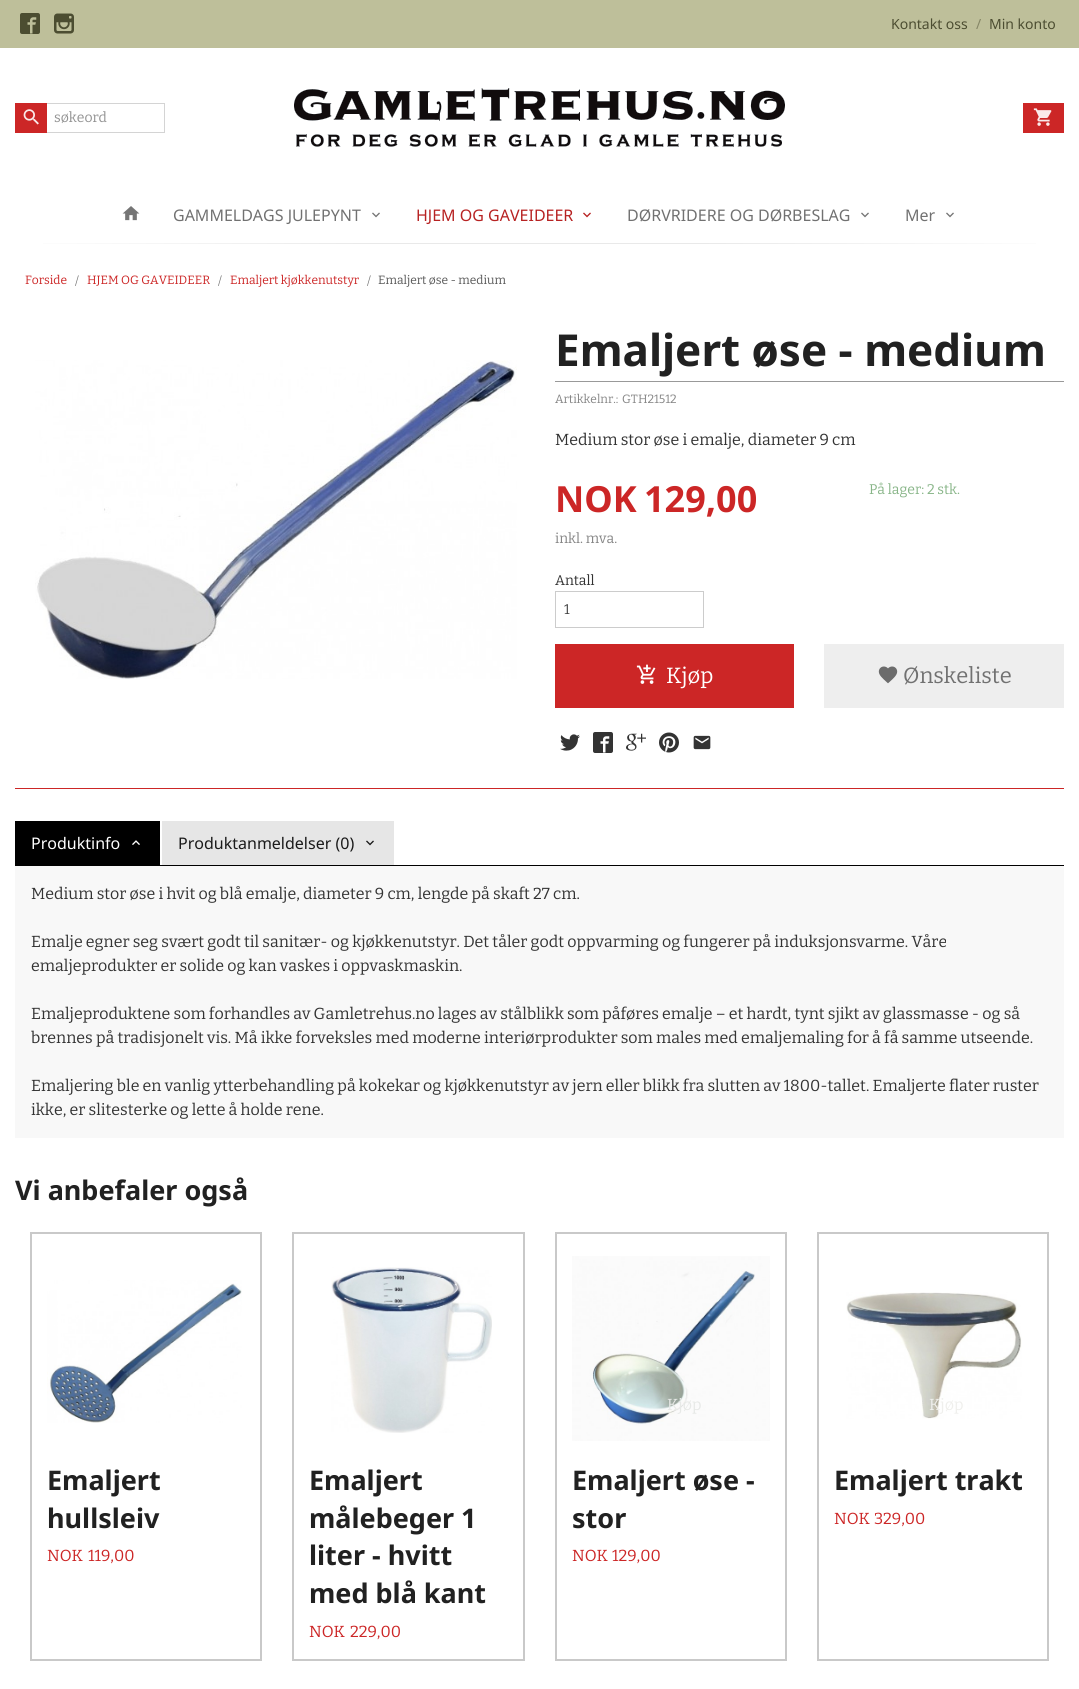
import math
import cairo

surface = cairo.ImageSurface(cairo.FORMAT_RGB24, 1079, 1689)
ctx = cairo.Context(surface)
options = cairo.FontOptions()
options.set_hint_metrics(cairo.HINT_METRICS_OFF)
options.set_hint_style(cairo.HINT_STYLE_NONE)
ctx.set_font_options(options)
ctx.set_miter_limit(4)


def round_rect(x, y, w, h, r):
    ctx.new_sub_path()
    for i, (u, v) in enumerate([(x + w - r, y + h - r), (x + r, y + h - r), (x + r, y + r), (x + w - r, y + r)]):
        ctx.arc(u, v, r, i * math.pi / 2, (i + 1) * math.pi / 2)
    ctx.close_path()


def picture(path, x, y, w, h):
    ctx.save()
    ctx.set_source_surface(cairo.ImageSurface.create_from_png(path), x, y)
    ctx.rectangle(x, y, w, h)
    ctx.fill()
    ctx.restore()


ctx.set_source_rgb(1, 1, 1)
ctx.paint()
ctx.set_source_rgb(0.745, 0.749, 0.604)
ctx.rectangle(0, 0, 1079, 48)
ctx.fill()
ctx.set_source_rgb(0.298, 0.302, 0.192)
round_rect(20, 13, 20, 21, 2)
ctx.fill()
picture("img1.png", 27, 17, 10, 17)
picture("img2.png", 54, 13, 20, 21)
ctx.select_font_face("Noto Sans")
ctx.set_font_size(14)
ctx.move_to(891, 29)
ctx.show_text("Kontakt oss")
ctx.set_source_rgb(0.522, 0.525, 0.4)
ctx.move_to(976, 29)
ctx.show_text("/")
ctx.set_source_rgb(0.298, 0.302, 0.192)
ctx.move_to(989, 29)
ctx.show_text("Min konto")
ctx.rectangle(15.5, 103.5, 149, 29)
ctx.set_source_rgb(0.831, 0.831, 0.831)
ctx.set_line_width(1)
ctx.stroke()
ctx.set_source_rgb(0.8, 0.149, 0.149)
ctx.rectangle(15, 103, 32, 30)
ctx.fill()
picture("img3.png", 23, 109, 16, 16)
ctx.select_font_face("Bitter")
ctx.set_source_rgb(0.573, 0.573, 0.573)
ctx.move_to(54, 122)
ctx.show_text("søkeord")
picture("img4.png", 294, 88, 491, 59)
ctx.set_source_rgb(0.8, 0.149, 0.149)
ctx.rectangle(1023, 103, 41, 30)
ctx.fill()
picture("img5.png", 1033, 108, 19, 18)
picture("img6.png", 122, 206, 18, 15)
ctx.select_font_face("Noto Sans")
ctx.set_font_size(16)
ctx.set_source_rgb(0.443, 0.443, 0.443)
ctx.move_to(173, 221)
ctx.show_text("GAMMELDAGS JULEPYNT")
picture("img7.png", 372, 212, 8, 6)
ctx.set_source_rgb(0.718, 0.133, 0.133)
ctx.move_to(416, 221)
ctx.show_text("HJEM OG GAVEIDEER")
picture("img8.png", 583, 212, 8, 6)
ctx.set_source_rgb(0.443, 0.443, 0.443)
ctx.move_to(627, 221)
ctx.show_text("DØRVRIDERE OG DØRBESLAG")
picture("img7.png", 861, 212, 8, 6)
ctx.move_to(905, 221)
ctx.show_text("Mer")
picture("img7.png", 946, 212, 8, 6)
gradient = cairo.LinearGradient(0, 244, 1079, 243)
gradient.add_color_stop_rgba(0, 1, 1, 1, 1)
gradient.add_color_stop_rgba(0.35, 0.914, 0.914, 0.914, 1)
gradient.add_color_stop_rgba(0.65, 0.914, 0.914, 0.914, 1)
gradient.add_color_stop_rgba(1, 1, 1, 1, 1)
ctx.set_source(gradient)
ctx.rectangle(43, 243, 993, 1)
ctx.fill()
ctx.select_font_face("Bitter")
ctx.set_font_size(12)
ctx.set_source_rgb(0.8, 0.149, 0.149)
ctx.move_to(25, 284)
ctx.show_text("Forside")
ctx.set_source_rgb(0.443, 0.443, 0.443)
ctx.move_to(75, 285)
ctx.show_text("/")
ctx.set_source_rgb(0.8, 0.149, 0.149)
ctx.move_to(87, 284)
ctx.show_text("HJEM OG GAVEIDEER")
ctx.set_source_rgb(0.443, 0.443, 0.443)
ctx.move_to(218, 285)
ctx.show_text("/")
ctx.set_source_rgb(0.8, 0.149, 0.149)
ctx.move_to(230, 284)
ctx.show_text("Emaljert kjøkkenutstyr")
ctx.set_source_rgb(0.443, 0.443, 0.443)
ctx.move_to(367, 285)
ctx.show_text("/")
ctx.set_source_rgb(0.345, 0.345, 0.345)
ctx.move_to(378, 284)
ctx.show_text("Emaljert øse - medium")
picture("img9.png", 35, 360, 482, 319)
ctx.set_source_rgb(0.6, 0.6, 0.6)
ctx.rectangle(555, 381, 509, 1)
ctx.fill()
ctx.select_font_face("Noto Sans", cairo.FONT_SLANT_NORMAL, cairo.FONT_WEIGHT_BOLD)
ctx.set_font_size(44)
ctx.set_source_rgb(0.129, 0.129, 0.129)
ctx.move_to(555, 366)
ctx.show_text("Emaljert øse - medium")
ctx.select_font_face("Bitter")
ctx.set_font_size(12)
ctx.set_source_rgb(0.522, 0.522, 0.522)
ctx.move_to(555, 403)
ctx.show_text("Artikkelnr.:")
ctx.move_to(622, 403)
ctx.show_text("GTH21512")
ctx.set_font_size(16)
ctx.set_source_rgb(0.2, 0.2, 0.2)
ctx.move_to(555, 445)
ctx.show_text("Medium stor øse i emalje, diameter 9 cm")
ctx.select_font_face("Noto Sans", cairo.FONT_SLANT_NORMAL, cairo.FONT_WEIGHT_BOLD)
ctx.set_font_size(36)
ctx.set_source_rgb(0.8, 0.149, 0.149)
ctx.move_to(555, 512)
ctx.show_text("NOK")
ctx.move_to(644, 512)
ctx.show_text("129,00")
ctx.select_font_face("Bitter")
ctx.set_font_size(14)
ctx.set_source_rgb(0.522, 0.522, 0.522)
ctx.move_to(555, 543)
ctx.show_text("inkl. mva.")
ctx.set_source_rgb(0.533, 0.71, 0.533)
ctx.move_to(869, 494)
ctx.show_text("På lager: 2 stk.")
ctx.set_source_rgb(0.2, 0.2, 0.2)
ctx.move_to(555, 585)
ctx.show_text("Antall")
ctx.rectangle(555.5, 591.5, 148, 36)
ctx.set_source_rgb(0.8, 0.8, 0.8)
ctx.stroke()
ctx.set_source_rgb(0.251, 0.251, 0.251)
ctx.move_to(564, 614)
ctx.show_text("1")
ctx.set_source_rgb(0.8, 0.149, 0.149)
ctx.rectangle(555, 644, 239, 64)
ctx.fill()
picture("img10.png", 636, 664, 20, 20)
ctx.set_font_size(22)
ctx.set_source_rgb(1, 1, 1)
ctx.move_to(666, 683)
ctx.show_text("Kjøp")
ctx.set_source_rgb(0.933, 0.933, 0.933)
ctx.rectangle(824, 644, 240, 64)
ctx.fill()
picture("img11.png", 878, 666, 20, 18)
ctx.set_source_rgb(0.443, 0.443, 0.443)
ctx.move_to(903, 683)
ctx.show_text("Ønskeliste")
picture("img12.png", 560, 734, 20, 17)
ctx.set_source_rgb(0.2, 0.2, 0.2)
round_rect(593, 732, 20, 21, 2)
ctx.fill()
picture("img13.png", 600, 736, 10, 17)
picture("img14.png", 626, 733, 20, 18)
picture("img15.png", 659, 732, 20, 21)
picture("img16.png", 693, 735, 18, 15)
ctx.set_source_rgb(0.8, 0.149, 0.149)
ctx.rectangle(15, 788, 1049, 1)
ctx.fill()
ctx.set_source_rgb(0, 0, 0)
ctx.rectangle(15, 821, 145, 44)
ctx.fill()
ctx.select_font_face("Noto Sans")
ctx.set_font_size(16)
ctx.set_source_rgb(1, 1, 1)
ctx.move_to(31, 849)
ctx.show_text("Produktinfo")
picture("img17.png", 132, 840, 8, 5)
ctx.set_source_rgb(0.902, 0.902, 0.902)
ctx.rectangle(162, 821, 232, 44)
ctx.fill()
ctx.set_source_rgb(0.102, 0.102, 0.102)
ctx.move_to(178, 849)
ctx.show_text("Produktanmeldelser (0)")
picture("img18.png", 366, 840, 8, 6)
ctx.set_source_rgb(0.969, 0.969, 0.969)
ctx.rectangle(15, 866, 1049, 272)
ctx.fill()
ctx.set_source_rgb(0, 0, 0)
ctx.rectangle(15, 865, 1049, 1)
ctx.fill()
ctx.select_font_face("Bitter")
ctx.set_source_rgb(0.2, 0.2, 0.2)
ctx.move_to(31, 899)
ctx.show_text("Medium stor øse i hvit og blå emalje, diameter 9 cm, lengde på skaft 27 cm.")
ctx.move_to(31, 947)
ctx.show_text("Emalje egner seg svært godt til sanitær- og kjøkkenutstyr. Det tåler godt oppvarming og fungerer på induksjonsvarme. Våre")
ctx.move_to(31, 971)
ctx.show_text("emaljeprodukter er solide og kan vaskes i oppvaskmaskin.")
ctx.move_to(31, 1019)
ctx.show_text("Emaljeproduktene som forhandles av Gamletrehus.no lages av stålblikk som påføres emalje – et hardt, tynt sjikt av glassmasse - og så")
ctx.move_to(31, 1043)
ctx.show_text("brennes på tradisjonelt vis. Må ikke forveksles med moderne interiørprodukter som males med emaljemaling for å få samme utseende.")
ctx.move_to(31, 1091)
ctx.show_text("Emaljering ble en vanlig ytterbehandling på kokekar og kjøkkenutstyr av jern eller blikk fra slutten av 1800-tallet. Emaljerte flater ruster")
ctx.move_to(31, 1115)
ctx.show_text("ikke, er slitesterke og lette å holde rene.")
ctx.select_font_face("Noto Sans", cairo.FONT_SLANT_NORMAL, cairo.FONT_WEIGHT_BOLD)
ctx.set_font_size(27)
ctx.set_source_rgb(0.129, 0.129, 0.129)
ctx.move_to(15, 1200)
ctx.show_text("Vi anbefaler også")
ctx.rectangle(31, 1233, 230, 427)
ctx.set_source_rgb(0.788, 0.788, 0.788)
ctx.set_line_width(2)
ctx.stroke()
picture("img19.png", 47, 1280, 195, 143)
ctx.set_source_rgb(0.129, 0.129, 0.129)
ctx.move_to(47, 1490)
ctx.show_text("Emaljert")
ctx.move_to(47, 1528)
ctx.show_text("hullsleiv")
ctx.select_font_face("Bitter")
ctx.set_font_size(16)
ctx.set_source_rgb(0.8, 0.149, 0.149)
ctx.move_to(47, 1561)
ctx.show_text("NOK")
ctx.move_to(88, 1561)
ctx.show_text("119,00")
ctx.rectangle(293, 1233, 231, 427)
ctx.set_source_rgb(0.788, 0.788, 0.788)
ctx.stroke()
picture("img20.png", 331, 1267, 161, 166)
ctx.select_font_face("Noto Sans", cairo.FONT_SLANT_NORMAL, cairo.FONT_WEIGHT_BOLD)
ctx.set_font_size(27)
ctx.set_source_rgb(0.129, 0.129, 0.129)
ctx.move_to(309, 1490)
ctx.show_text("Emaljert")
ctx.move_to(309, 1528)
ctx.show_text("målebeger 1")
ctx.move_to(309, 1565)
ctx.show_text("liter - hvitt")
ctx.move_to(309, 1603)
ctx.show_text("med blå kant")
ctx.select_font_face("Bitter")
ctx.set_font_size(16)
ctx.set_source_rgb(0.8, 0.149, 0.149)
ctx.move_to(309, 1637)
ctx.show_text("NOK")
ctx.move_to(350, 1637)
ctx.show_text("229,00")
ctx.rectangle(556, 1233, 230, 427)
ctx.set_source_rgb(0.788, 0.788, 0.788)
ctx.stroke()
picture("img21.png", 572, 1256, 198, 185)
ctx.set_source_rgb(0.906, 0.914, 0.906)
ctx.move_to(667, 1410)
ctx.show_text("Kjøp")
ctx.select_font_face("Noto Sans", cairo.FONT_SLANT_NORMAL, cairo.FONT_WEIGHT_BOLD)
ctx.set_font_size(27)
ctx.set_source_rgb(0.129, 0.129, 0.129)
ctx.move_to(572, 1490)
ctx.show_text("Emaljert øse -")
ctx.move_to(572, 1528)
ctx.show_text("stor")
ctx.select_font_face("Bitter")
ctx.set_font_size(16)
ctx.set_source_rgb(0.8, 0.149, 0.149)
ctx.move_to(572, 1561)
ctx.show_text("NOK")
ctx.move_to(612, 1561)
ctx.show_text("129,00")
ctx.rectangle(818, 1233, 230, 427)
ctx.set_source_rgb(0.788, 0.788, 0.788)
ctx.stroke()
picture("img22.png", 846, 1292, 176, 127)
ctx.set_source_rgb(0.937, 0.937, 0.922)
ctx.move_to(929, 1410)
ctx.show_text("Kjøp")
ctx.select_font_face("Noto Sans", cairo.FONT_SLANT_NORMAL, cairo.FONT_WEIGHT_BOLD)
ctx.set_font_size(27)
ctx.set_source_rgb(0.129, 0.129, 0.129)
ctx.move_to(834, 1490)
ctx.show_text("Emaljert trakt")
ctx.select_font_face("Bitter")
ctx.set_font_size(16)
ctx.set_source_rgb(0.8, 0.149, 0.149)
ctx.move_to(834, 1524)
ctx.show_text("NOK")
ctx.move_to(874, 1524)
ctx.show_text("329,00")
surface.write_to_png("page.png")
